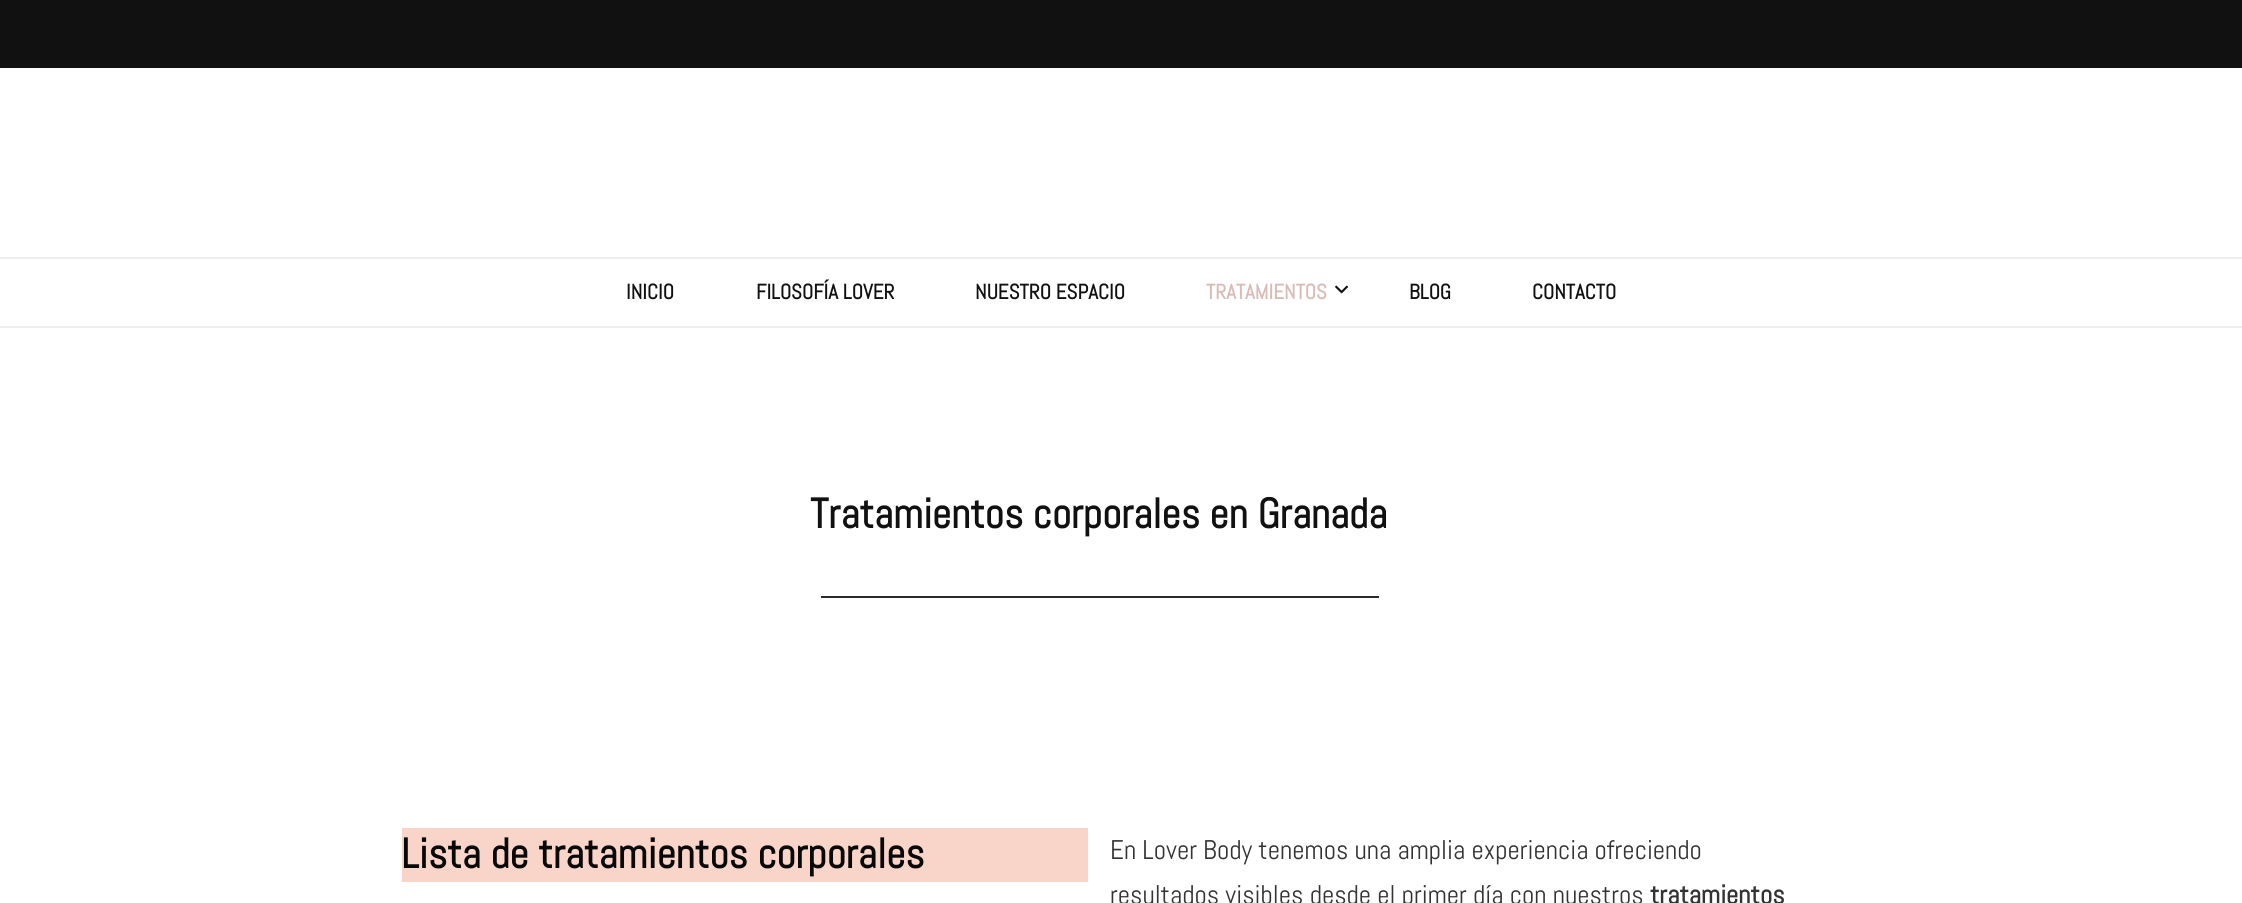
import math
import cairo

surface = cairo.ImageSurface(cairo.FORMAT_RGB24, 2242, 903)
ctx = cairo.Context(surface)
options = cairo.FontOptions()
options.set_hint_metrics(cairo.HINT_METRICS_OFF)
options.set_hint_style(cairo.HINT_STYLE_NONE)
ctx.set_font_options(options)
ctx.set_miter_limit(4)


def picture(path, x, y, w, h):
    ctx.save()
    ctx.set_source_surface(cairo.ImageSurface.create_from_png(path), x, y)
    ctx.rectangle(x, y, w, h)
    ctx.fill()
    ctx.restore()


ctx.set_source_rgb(1, 1, 1)
ctx.paint()
ctx.set_source_rgb(0.067, 0.067, 0.067)
ctx.rectangle(0, 0, 2242, 68)
ctx.fill()
ctx.set_source_rgb(0.933, 0.933, 0.933)
ctx.rectangle(0, 257, 2242, 2)
ctx.fill()
ctx.rectangle(0, 326, 2242, 2)
ctx.fill()
ctx.select_font_face("Abel", cairo.FONT_SLANT_NORMAL, cairo.FONT_WEIGHT_BOLD)
ctx.set_font_size(21)
ctx.set_source_rgb(0.067, 0.067, 0.067)
ctx.move_to(626, 299)
ctx.show_text("INICIO")
ctx.move_to(756, 299)
ctx.show_text("FILOSOFÍA LOVER")
ctx.move_to(975, 299)
ctx.show_text("NUESTRO ESPACIO")
ctx.set_source_rgb(0.847, 0.733, 0.71)
ctx.move_to(1206, 299)
ctx.show_text("TRATAMIENTOS")
picture("img1.png", 1335, 285, 14, 9)
ctx.set_source_rgb(0.067, 0.067, 0.067)
ctx.move_to(1409, 299)
ctx.show_text("BLOG")
ctx.move_to(1532, 299)
ctx.show_text("CONTACTO")
ctx.set_font_size(42)
ctx.move_to(810, 528)
ctx.show_text("Tratamientos corporales en Granada")
ctx.set_source_rgb(0.165, 0.165, 0.165)
ctx.rectangle(821, 596, 558, 2)
ctx.fill()
ctx.set_source_rgb(0.973, 0.835, 0.788)
ctx.rectangle(402, 828, 686, 54)
ctx.fill()
ctx.set_source_rgb(0.039, 0.039, 0.039)
ctx.move_to(401, 868)
ctx.show_text("Lista de tratamientos corporales")
ctx.select_font_face("Abel")
ctx.set_font_size(27)
ctx.set_source_rgb(0.2, 0.2, 0.2)
ctx.move_to(1110, 859)
ctx.show_text("En Lover Body tenemos una amplia experiencia ofreciendo")
ctx.move_to(1110, 904)
ctx.show_text("resultados visibles desde el primer día con nuestros")
ctx.select_font_face("Abel", cairo.FONT_SLANT_NORMAL, cairo.FONT_WEIGHT_BOLD)
ctx.move_to(1650, 904)
ctx.show_text("tratamientos")
surface.write_to_png("page.png")
